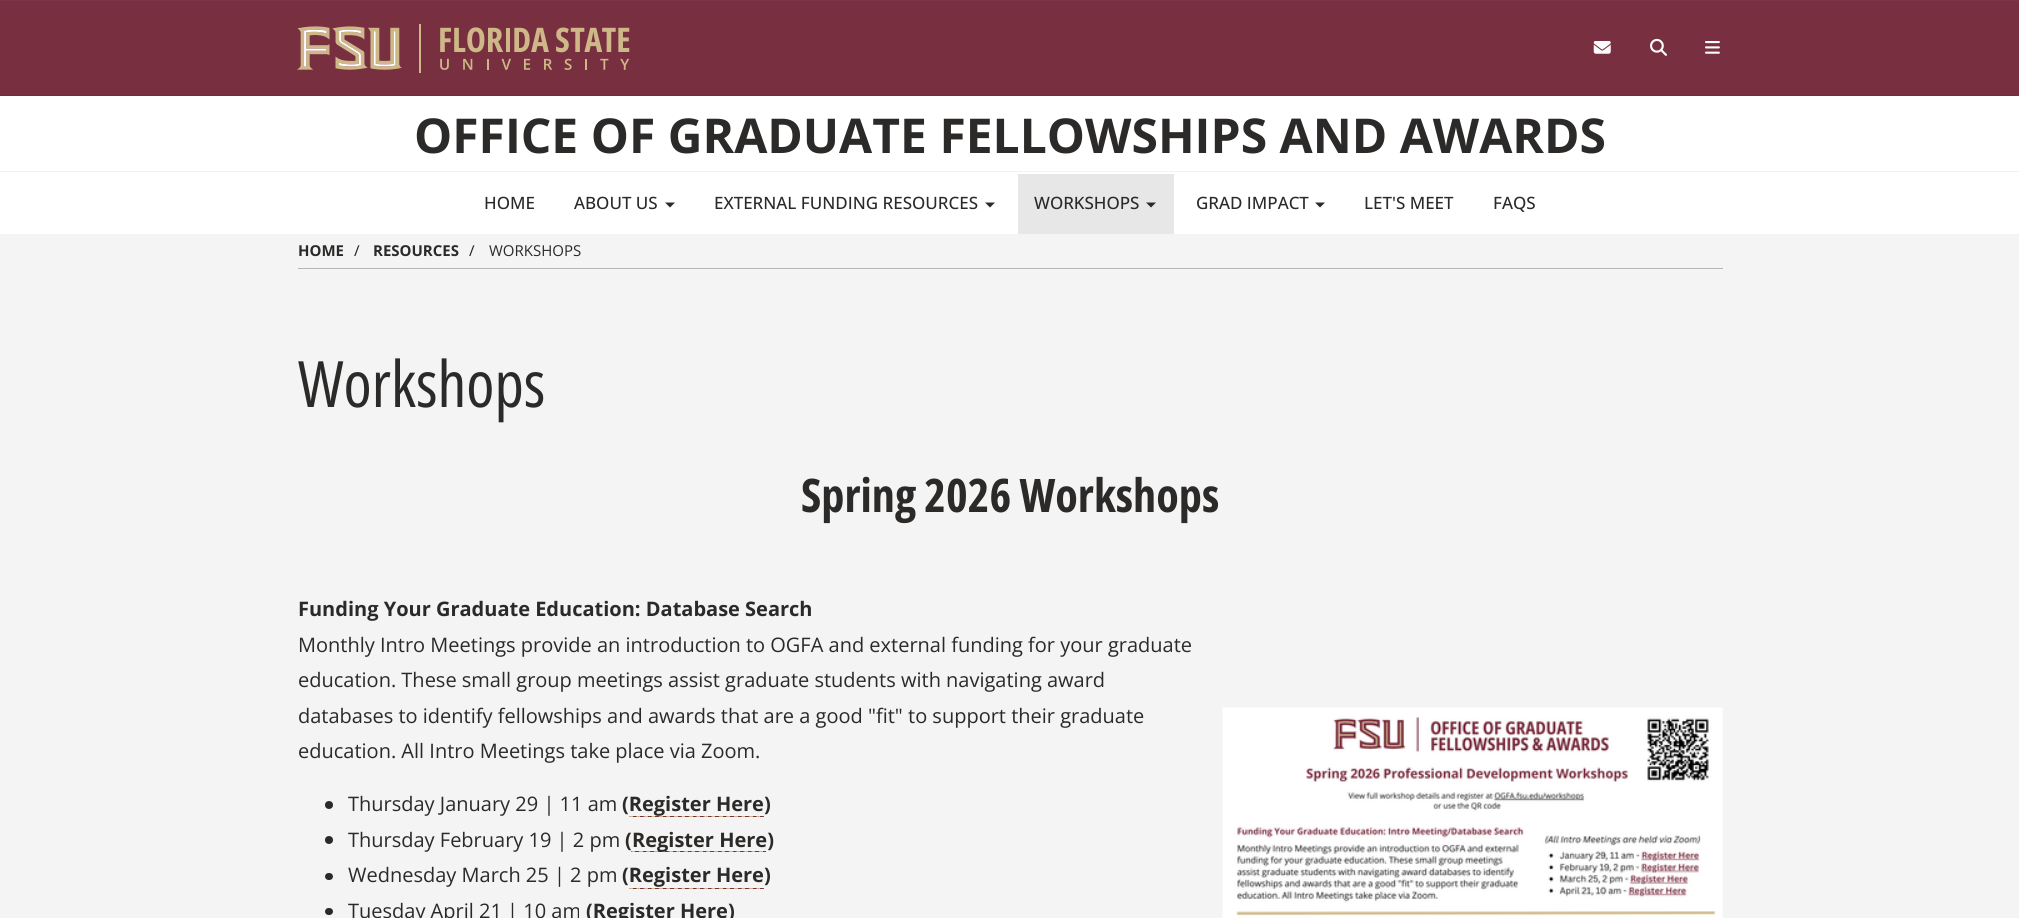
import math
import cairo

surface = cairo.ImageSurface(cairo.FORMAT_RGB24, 2019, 918)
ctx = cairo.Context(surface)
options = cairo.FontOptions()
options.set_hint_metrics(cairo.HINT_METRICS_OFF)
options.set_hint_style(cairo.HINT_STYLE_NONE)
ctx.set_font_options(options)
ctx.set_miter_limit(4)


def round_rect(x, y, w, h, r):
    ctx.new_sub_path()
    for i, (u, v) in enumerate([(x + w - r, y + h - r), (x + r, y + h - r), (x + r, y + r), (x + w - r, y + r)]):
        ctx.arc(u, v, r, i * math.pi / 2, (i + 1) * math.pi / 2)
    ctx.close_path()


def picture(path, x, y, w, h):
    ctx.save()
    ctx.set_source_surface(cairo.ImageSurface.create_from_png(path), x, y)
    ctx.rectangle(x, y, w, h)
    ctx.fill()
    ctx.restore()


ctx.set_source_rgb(0.471, 0.184, 0.251)
ctx.paint()
ctx.set_source_rgb(0.486, 0.208, 0.275)
ctx.rectangle(0, 0, 2019, 1)
ctx.fill()
ctx.set_source_rgb(0.447, 0.176, 0.239)
ctx.rectangle(0, 95, 2019, 1)
ctx.fill()
picture("img1.png", 297, 24, 333, 49)
picture("img2.png", 1593, 41, 18, 13)
picture("img3.png", 1650, 38, 17, 18)
picture("img4.png", 1705, 41, 15, 13)
ctx.set_source_rgb(1, 1, 1)
ctx.rectangle(0, 96, 2019, 138)
ctx.fill()
ctx.set_source_rgb(0.953, 0.949, 0.949)
ctx.rectangle(0, 171, 2019, 1)
ctx.fill()
ctx.select_font_face("Open Sans", cairo.FONT_SLANT_NORMAL, cairo.FONT_WEIGHT_BOLD)
ctx.set_font_size(48)
ctx.set_source_rgb(0.173, 0.165, 0.161)
ctx.move_to(414, 153)
ctx.show_text("OFFICE OF GRADUATE FELLOWSHIPS AND AWARDS")
ctx.select_font_face("Open Sans Medium")
ctx.set_font_size(17)
ctx.move_to(484, 209)
ctx.show_text("HOME")
ctx.move_to(574, 209)
ctx.show_text("ABOUT US")
ctx.new_path()
ctx.move_to(665, 202.5)
ctx.line_to(675, 202.5)
ctx.line_to(670, 207.5)
ctx.close_path()
ctx.fill()
ctx.move_to(714, 209)
ctx.show_text("EXTERNAL FUNDING RESOURCES")
ctx.new_path()
ctx.move_to(985, 202.5)
ctx.line_to(995, 202.5)
ctx.line_to(990, 207.5)
ctx.close_path()
ctx.fill()
ctx.set_source_rgb(0.906, 0.906, 0.906)
ctx.rectangle(1018, 174, 156, 60)
ctx.fill()
ctx.set_source_rgb(0.173, 0.165, 0.161)
ctx.move_to(1034, 209)
ctx.show_text("WORKSHOPS")
ctx.new_path()
ctx.move_to(1146, 202.5)
ctx.line_to(1156, 202.5)
ctx.line_to(1151, 207.5)
ctx.close_path()
ctx.fill()
ctx.move_to(1196, 209)
ctx.show_text("GRAD IMPACT")
ctx.new_path()
ctx.move_to(1315, 202.5)
ctx.line_to(1325, 202.5)
ctx.line_to(1320, 207.5)
ctx.close_path()
ctx.fill()
ctx.move_to(1364, 209)
ctx.show_text("LET'S MEET")
ctx.move_to(1493, 209)
ctx.show_text("FAQS")
ctx.set_source_rgb(0.957, 0.957, 0.957)
ctx.rectangle(0, 234, 2019, 684)
ctx.fill()
ctx.select_font_face("Open Sans", cairo.FONT_SLANT_NORMAL, cairo.FONT_WEIGHT_BOLD)
ctx.set_font_size(15)
ctx.set_source_rgb(0.173, 0.165, 0.161)
ctx.move_to(298, 256)
ctx.show_text("HOME")
ctx.select_font_face("Open Sans")
ctx.move_to(354, 256)
ctx.show_text("/")
ctx.select_font_face("Open Sans", cairo.FONT_SLANT_NORMAL, cairo.FONT_WEIGHT_BOLD)
ctx.move_to(373, 256)
ctx.show_text("RESOURCES")
ctx.select_font_face("Open Sans")
ctx.move_to(469, 256)
ctx.show_text("/")
ctx.select_font_face("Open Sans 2")
ctx.move_to(489, 256)
ctx.show_text("WORKSHOPS")
ctx.set_source_rgb(0.71, 0.71, 0.706)
ctx.rectangle(298, 268, 1425, 1)
ctx.fill()
ctx.select_font_face("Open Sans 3")
ctx.set_font_size(64)
ctx.set_source_rgb(0.173, 0.165, 0.161)
ctx.move_to(298, 407)
ctx.show_text("Workshops")
ctx.select_font_face("Open Sans 2", cairo.FONT_SLANT_NORMAL, cairo.FONT_WEIGHT_BOLD)
ctx.set_font_size(46.25)
ctx.move_to(801, 512)
ctx.show_text("Spring 2026 Workshops")
ctx.select_font_face("Open Sans", cairo.FONT_SLANT_NORMAL, cairo.FONT_WEIGHT_BOLD)
ctx.set_font_size(20)
ctx.move_to(298, 616)
ctx.show_text("Funding Your Graduate Education: Database Search")
ctx.select_font_face("Open Sans 2")
ctx.move_to(298, 652)
ctx.show_text("Monthly Intro Meetings provide an introduction to OGFA and external funding for your graduate")
ctx.move_to(298, 687)
ctx.show_text("education. These small group meetings assist graduate students with navigating award")
ctx.move_to(298, 723)
ctx.show_text("databases to identify fellowships and awards that are a good \"fit\" to support their graduate")
ctx.move_to(298, 758)
ctx.show_text("education. All Intro Meetings take place via Zoom.")
ctx.new_path()
ctx.arc(329, 805, 4, 0, 2 * math.pi)
ctx.fill()
ctx.move_to(348, 811)
ctx.show_text("Thursday January 29 | 11 am")
ctx.select_font_face("Open Sans", cairo.FONT_SLANT_NORMAL, cairo.FONT_WEIGHT_BOLD)
ctx.move_to(622, 811)
ctx.show_text("(Register Here)")
gradient = cairo.LinearGradient(625, 817, 633, 817)
gradient.add_color_stop_rgba(0.4, 0.471, 0.184, 0.251, 1)
gradient.add_color_stop_rgba(0.6, 0.808, 0.722, 0.533, 1)
ctx.set_source(gradient)
ctx.rectangle(629, 816, 4, 1)
ctx.fill()
gradient = cairo.LinearGradient(633, 817, 640, 817)
gradient.add_color_stop_rgba(0.4, 0.471, 0.184, 0.251, 1)
gradient.add_color_stop_rgba(0.6, 0.808, 0.722, 0.533, 1)
ctx.set_source(gradient)
ctx.rectangle(633, 816, 7, 1)
ctx.fill()
gradient = cairo.LinearGradient(640, 817, 648, 817)
gradient.add_color_stop_rgba(0.4, 0.471, 0.184, 0.251, 1)
gradient.add_color_stop_rgba(0.6, 0.808, 0.722, 0.533, 1)
ctx.set_source(gradient)
ctx.rectangle(640, 816, 8, 1)
ctx.fill()
gradient = cairo.LinearGradient(648, 817, 655, 817)
gradient.add_color_stop_rgba(0.4, 0.471, 0.184, 0.251, 1)
gradient.add_color_stop_rgba(0.6, 0.808, 0.722, 0.533, 1)
ctx.set_source(gradient)
ctx.rectangle(648, 816, 7, 1)
ctx.fill()
gradient = cairo.LinearGradient(655, 817, 663, 817)
gradient.add_color_stop_rgba(0.4, 0.471, 0.184, 0.251, 1)
gradient.add_color_stop_rgba(0.6, 0.808, 0.722, 0.533, 1)
ctx.set_source(gradient)
ctx.rectangle(655, 816, 8, 1)
ctx.fill()
gradient = cairo.LinearGradient(663, 817, 670, 817)
gradient.add_color_stop_rgba(0.4, 0.471, 0.184, 0.251, 1)
gradient.add_color_stop_rgba(0.6, 0.808, 0.722, 0.533, 1)
ctx.set_source(gradient)
ctx.rectangle(663, 816, 7, 1)
ctx.fill()
gradient = cairo.LinearGradient(670, 817, 678, 817)
gradient.add_color_stop_rgba(0.4, 0.471, 0.184, 0.251, 1)
gradient.add_color_stop_rgba(0.6, 0.808, 0.722, 0.533, 1)
ctx.set_source(gradient)
ctx.rectangle(670, 816, 8, 1)
ctx.fill()
gradient = cairo.LinearGradient(678, 817, 685, 817)
gradient.add_color_stop_rgba(0.4, 0.471, 0.184, 0.251, 1)
gradient.add_color_stop_rgba(0.6, 0.808, 0.722, 0.533, 1)
ctx.set_source(gradient)
ctx.rectangle(678, 816, 7, 1)
ctx.fill()
gradient = cairo.LinearGradient(685, 817, 693, 817)
gradient.add_color_stop_rgba(0.4, 0.471, 0.184, 0.251, 1)
gradient.add_color_stop_rgba(0.6, 0.808, 0.722, 0.533, 1)
ctx.set_source(gradient)
ctx.rectangle(685, 816, 8, 1)
ctx.fill()
gradient = cairo.LinearGradient(693, 817, 700, 817)
gradient.add_color_stop_rgba(0.4, 0.471, 0.184, 0.251, 1)
gradient.add_color_stop_rgba(0.6, 0.808, 0.722, 0.533, 1)
ctx.set_source(gradient)
ctx.rectangle(693, 816, 7, 1)
ctx.fill()
gradient = cairo.LinearGradient(700, 817, 708, 817)
gradient.add_color_stop_rgba(0.4, 0.471, 0.184, 0.251, 1)
gradient.add_color_stop_rgba(0.6, 0.808, 0.722, 0.533, 1)
ctx.set_source(gradient)
ctx.rectangle(700, 816, 8, 1)
ctx.fill()
gradient = cairo.LinearGradient(708, 817, 715, 817)
gradient.add_color_stop_rgba(0.4, 0.471, 0.184, 0.251, 1)
gradient.add_color_stop_rgba(0.6, 0.808, 0.722, 0.533, 1)
ctx.set_source(gradient)
ctx.rectangle(708, 816, 7, 1)
ctx.fill()
gradient = cairo.LinearGradient(715, 817, 723, 817)
gradient.add_color_stop_rgba(0.4, 0.471, 0.184, 0.251, 1)
gradient.add_color_stop_rgba(0.6, 0.808, 0.722, 0.533, 1)
ctx.set_source(gradient)
ctx.rectangle(715, 816, 8, 1)
ctx.fill()
gradient = cairo.LinearGradient(723, 817, 730, 817)
gradient.add_color_stop_rgba(0.4, 0.471, 0.184, 0.251, 1)
gradient.add_color_stop_rgba(0.6, 0.808, 0.722, 0.533, 1)
ctx.set_source(gradient)
ctx.rectangle(723, 816, 7, 1)
ctx.fill()
gradient = cairo.LinearGradient(730, 817, 738, 817)
gradient.add_color_stop_rgba(0.4, 0.471, 0.184, 0.251, 1)
gradient.add_color_stop_rgba(0.6, 0.808, 0.722, 0.533, 1)
ctx.set_source(gradient)
ctx.rectangle(730, 816, 8, 1)
ctx.fill()
gradient = cairo.LinearGradient(738, 817, 745, 817)
gradient.add_color_stop_rgba(0.4, 0.471, 0.184, 0.251, 1)
gradient.add_color_stop_rgba(0.6, 0.808, 0.722, 0.533, 1)
ctx.set_source(gradient)
ctx.rectangle(738, 816, 7, 1)
ctx.fill()
gradient = cairo.LinearGradient(745, 817, 753, 817)
gradient.add_color_stop_rgba(0.4, 0.471, 0.184, 0.251, 1)
gradient.add_color_stop_rgba(0.6, 0.808, 0.722, 0.533, 1)
ctx.set_source(gradient)
ctx.rectangle(745, 816, 8, 1)
ctx.fill()
gradient = cairo.LinearGradient(753, 817, 760, 817)
gradient.add_color_stop_rgba(0.4, 0.471, 0.184, 0.251, 1)
gradient.add_color_stop_rgba(0.6, 0.808, 0.722, 0.533, 1)
ctx.set_source(gradient)
ctx.rectangle(753, 816, 7, 1)
ctx.fill()
gradient = cairo.LinearGradient(760, 817, 768, 817)
gradient.add_color_stop_rgba(0.4, 0.471, 0.184, 0.251, 1)
gradient.add_color_stop_rgba(0.6, 0.808, 0.722, 0.533, 1)
ctx.set_source(gradient)
ctx.rectangle(760, 816, 4, 1)
ctx.fill()
ctx.set_source_rgb(0.173, 0.165, 0.161)
ctx.arc(329, 840, 4, 0, 2 * math.pi)
ctx.fill()
ctx.select_font_face("Open Sans 2")
ctx.move_to(348, 847)
ctx.show_text("Thursday February 19 | 2 pm")
ctx.select_font_face("Open Sans", cairo.FONT_SLANT_NORMAL, cairo.FONT_WEIGHT_BOLD)
ctx.move_to(625, 847)
ctx.show_text("(")
gradient = cairo.LinearGradient(628, 852, 635, 852)
gradient.add_color_stop_rgba(0.4, 0.471, 0.184, 0.251, 1)
gradient.add_color_stop_rgba(0.6, 0.808, 0.722, 0.533, 1)
ctx.set_source(gradient)
ctx.rectangle(631, 851, 4, 1)
ctx.fill()
gradient = cairo.LinearGradient(635, 852, 643, 852)
gradient.add_color_stop_rgba(0.4, 0.471, 0.184, 0.251, 1)
gradient.add_color_stop_rgba(0.6, 0.808, 0.722, 0.533, 1)
ctx.set_source(gradient)
ctx.rectangle(635, 851, 8, 1)
ctx.fill()
gradient = cairo.LinearGradient(643, 852, 650, 852)
gradient.add_color_stop_rgba(0.4, 0.471, 0.184, 0.251, 1)
gradient.add_color_stop_rgba(0.6, 0.808, 0.722, 0.533, 1)
ctx.set_source(gradient)
ctx.rectangle(643, 851, 7, 1)
ctx.fill()
gradient = cairo.LinearGradient(650, 852, 658, 852)
gradient.add_color_stop_rgba(0.4, 0.471, 0.184, 0.251, 1)
gradient.add_color_stop_rgba(0.6, 0.808, 0.722, 0.533, 1)
ctx.set_source(gradient)
ctx.rectangle(650, 851, 8, 1)
ctx.fill()
gradient = cairo.LinearGradient(658, 852, 665, 852)
gradient.add_color_stop_rgba(0.4, 0.471, 0.184, 0.251, 1)
gradient.add_color_stop_rgba(0.6, 0.808, 0.722, 0.533, 1)
ctx.set_source(gradient)
ctx.rectangle(658, 851, 7, 1)
ctx.fill()
gradient = cairo.LinearGradient(665, 852, 673, 852)
gradient.add_color_stop_rgba(0.4, 0.471, 0.184, 0.251, 1)
gradient.add_color_stop_rgba(0.6, 0.808, 0.722, 0.533, 1)
ctx.set_source(gradient)
ctx.rectangle(665, 851, 8, 1)
ctx.fill()
gradient = cairo.LinearGradient(673, 852, 680, 852)
gradient.add_color_stop_rgba(0.4, 0.471, 0.184, 0.251, 1)
gradient.add_color_stop_rgba(0.6, 0.808, 0.722, 0.533, 1)
ctx.set_source(gradient)
ctx.rectangle(673, 851, 7, 1)
ctx.fill()
gradient = cairo.LinearGradient(680, 852, 688, 852)
gradient.add_color_stop_rgba(0.4, 0.471, 0.184, 0.251, 1)
gradient.add_color_stop_rgba(0.6, 0.808, 0.722, 0.533, 1)
ctx.set_source(gradient)
ctx.rectangle(680, 851, 8, 1)
ctx.fill()
gradient = cairo.LinearGradient(688, 852, 695, 852)
gradient.add_color_stop_rgba(0.4, 0.471, 0.184, 0.251, 1)
gradient.add_color_stop_rgba(0.6, 0.808, 0.722, 0.533, 1)
ctx.set_source(gradient)
ctx.rectangle(688, 851, 7, 1)
ctx.fill()
gradient = cairo.LinearGradient(695, 852, 703, 852)
gradient.add_color_stop_rgba(0.4, 0.471, 0.184, 0.251, 1)
gradient.add_color_stop_rgba(0.6, 0.808, 0.722, 0.533, 1)
ctx.set_source(gradient)
ctx.rectangle(695, 851, 8, 1)
ctx.fill()
gradient = cairo.LinearGradient(703, 852, 710, 852)
gradient.add_color_stop_rgba(0.4, 0.471, 0.184, 0.251, 1)
gradient.add_color_stop_rgba(0.6, 0.808, 0.722, 0.533, 1)
ctx.set_source(gradient)
ctx.rectangle(703, 851, 7, 1)
ctx.fill()
gradient = cairo.LinearGradient(710, 852, 718, 852)
gradient.add_color_stop_rgba(0.4, 0.471, 0.184, 0.251, 1)
gradient.add_color_stop_rgba(0.6, 0.808, 0.722, 0.533, 1)
ctx.set_source(gradient)
ctx.rectangle(710, 851, 8, 1)
ctx.fill()
gradient = cairo.LinearGradient(718, 852, 725, 852)
gradient.add_color_stop_rgba(0.4, 0.471, 0.184, 0.251, 1)
gradient.add_color_stop_rgba(0.6, 0.808, 0.722, 0.533, 1)
ctx.set_source(gradient)
ctx.rectangle(718, 851, 7, 1)
ctx.fill()
gradient = cairo.LinearGradient(725, 852, 733, 852)
gradient.add_color_stop_rgba(0.4, 0.471, 0.184, 0.251, 1)
gradient.add_color_stop_rgba(0.6, 0.808, 0.722, 0.533, 1)
ctx.set_source(gradient)
ctx.rectangle(725, 851, 8, 1)
ctx.fill()
gradient = cairo.LinearGradient(733, 852, 740, 852)
gradient.add_color_stop_rgba(0.4, 0.471, 0.184, 0.251, 1)
gradient.add_color_stop_rgba(0.6, 0.808, 0.722, 0.533, 1)
ctx.set_source(gradient)
ctx.rectangle(733, 851, 7, 1)
ctx.fill()
gradient = cairo.LinearGradient(740, 852, 748, 852)
gradient.add_color_stop_rgba(0.4, 0.471, 0.184, 0.251, 1)
gradient.add_color_stop_rgba(0.6, 0.808, 0.722, 0.533, 1)
ctx.set_source(gradient)
ctx.rectangle(740, 851, 8, 1)
ctx.fill()
gradient = cairo.LinearGradient(748, 852, 755, 852)
gradient.add_color_stop_rgba(0.4, 0.471, 0.184, 0.251, 1)
gradient.add_color_stop_rgba(0.6, 0.808, 0.722, 0.533, 1)
ctx.set_source(gradient)
ctx.rectangle(748, 851, 7, 1)
ctx.fill()
gradient = cairo.LinearGradient(755, 852, 763, 852)
gradient.add_color_stop_rgba(0.4, 0.471, 0.184, 0.251, 1)
gradient.add_color_stop_rgba(0.6, 0.808, 0.722, 0.533, 1)
ctx.set_source(gradient)
ctx.rectangle(755, 851, 8, 1)
ctx.fill()
gradient = cairo.LinearGradient(763, 852, 770, 852)
gradient.add_color_stop_rgba(0.4, 0.471, 0.184, 0.251, 1)
gradient.add_color_stop_rgba(0.6, 0.808, 0.722, 0.533, 1)
ctx.set_source(gradient)
ctx.rectangle(763, 851, 3, 1)
ctx.fill()
ctx.set_source_rgb(0.173, 0.165, 0.161)
ctx.move_to(632, 847)
ctx.show_text("Register Here)")
round_rect(325, 873, 8, 7, 3.5)
ctx.fill()
ctx.select_font_face("Open Sans 2")
ctx.move_to(348, 882)
ctx.show_text("Wednesday March 25 | 2 pm")
ctx.select_font_face("Open Sans", cairo.FONT_SLANT_NORMAL, cairo.FONT_WEIGHT_BOLD)
ctx.move_to(622, 882)
ctx.show_text("(Register Here)")
gradient = cairo.LinearGradient(625, 888, 633, 888)
gradient.add_color_stop_rgba(0.4, 0.471, 0.184, 0.251, 1)
gradient.add_color_stop_rgba(0.6, 0.808, 0.722, 0.533, 1)
ctx.set_source(gradient)
ctx.rectangle(629, 888, 4, 1)
ctx.fill()
gradient = cairo.LinearGradient(633, 888, 640, 888)
gradient.add_color_stop_rgba(0.4, 0.471, 0.184, 0.251, 1)
gradient.add_color_stop_rgba(0.6, 0.808, 0.722, 0.533, 1)
ctx.set_source(gradient)
ctx.rectangle(633, 888, 7, 1)
ctx.fill()
gradient = cairo.LinearGradient(640, 888, 648, 888)
gradient.add_color_stop_rgba(0.4, 0.471, 0.184, 0.251, 1)
gradient.add_color_stop_rgba(0.6, 0.808, 0.722, 0.533, 1)
ctx.set_source(gradient)
ctx.rectangle(640, 888, 8, 1)
ctx.fill()
gradient = cairo.LinearGradient(648, 888, 655, 888)
gradient.add_color_stop_rgba(0.4, 0.471, 0.184, 0.251, 1)
gradient.add_color_stop_rgba(0.6, 0.808, 0.722, 0.533, 1)
ctx.set_source(gradient)
ctx.rectangle(648, 888, 7, 1)
ctx.fill()
gradient = cairo.LinearGradient(655, 888, 663, 888)
gradient.add_color_stop_rgba(0.4, 0.471, 0.184, 0.251, 1)
gradient.add_color_stop_rgba(0.6, 0.808, 0.722, 0.533, 1)
ctx.set_source(gradient)
ctx.rectangle(655, 888, 8, 1)
ctx.fill()
gradient = cairo.LinearGradient(663, 888, 670, 888)
gradient.add_color_stop_rgba(0.4, 0.471, 0.184, 0.251, 1)
gradient.add_color_stop_rgba(0.6, 0.808, 0.722, 0.533, 1)
ctx.set_source(gradient)
ctx.rectangle(663, 888, 7, 1)
ctx.fill()
gradient = cairo.LinearGradient(670, 888, 678, 888)
gradient.add_color_stop_rgba(0.4, 0.471, 0.184, 0.251, 1)
gradient.add_color_stop_rgba(0.6, 0.808, 0.722, 0.533, 1)
ctx.set_source(gradient)
ctx.rectangle(670, 888, 8, 1)
ctx.fill()
gradient = cairo.LinearGradient(678, 888, 685, 888)
gradient.add_color_stop_rgba(0.4, 0.471, 0.184, 0.251, 1)
gradient.add_color_stop_rgba(0.6, 0.808, 0.722, 0.533, 1)
ctx.set_source(gradient)
ctx.rectangle(678, 888, 7, 1)
ctx.fill()
gradient = cairo.LinearGradient(685, 888, 693, 888)
gradient.add_color_stop_rgba(0.4, 0.471, 0.184, 0.251, 1)
gradient.add_color_stop_rgba(0.6, 0.808, 0.722, 0.533, 1)
ctx.set_source(gradient)
ctx.rectangle(685, 888, 8, 1)
ctx.fill()
gradient = cairo.LinearGradient(693, 888, 700, 888)
gradient.add_color_stop_rgba(0.4, 0.471, 0.184, 0.251, 1)
gradient.add_color_stop_rgba(0.6, 0.808, 0.722, 0.533, 1)
ctx.set_source(gradient)
ctx.rectangle(693, 888, 7, 1)
ctx.fill()
gradient = cairo.LinearGradient(700, 888, 708, 888)
gradient.add_color_stop_rgba(0.4, 0.471, 0.184, 0.251, 1)
gradient.add_color_stop_rgba(0.6, 0.808, 0.722, 0.533, 1)
ctx.set_source(gradient)
ctx.rectangle(700, 888, 8, 1)
ctx.fill()
gradient = cairo.LinearGradient(708, 888, 715, 888)
gradient.add_color_stop_rgba(0.4, 0.471, 0.184, 0.251, 1)
gradient.add_color_stop_rgba(0.6, 0.808, 0.722, 0.533, 1)
ctx.set_source(gradient)
ctx.rectangle(708, 888, 7, 1)
ctx.fill()
gradient = cairo.LinearGradient(715, 888, 723, 888)
gradient.add_color_stop_rgba(0.4, 0.471, 0.184, 0.251, 1)
gradient.add_color_stop_rgba(0.6, 0.808, 0.722, 0.533, 1)
ctx.set_source(gradient)
ctx.rectangle(715, 888, 8, 1)
ctx.fill()
gradient = cairo.LinearGradient(723, 888, 730, 888)
gradient.add_color_stop_rgba(0.4, 0.471, 0.184, 0.251, 1)
gradient.add_color_stop_rgba(0.6, 0.808, 0.722, 0.533, 1)
ctx.set_source(gradient)
ctx.rectangle(723, 888, 7, 1)
ctx.fill()
gradient = cairo.LinearGradient(730, 888, 738, 888)
gradient.add_color_stop_rgba(0.4, 0.471, 0.184, 0.251, 1)
gradient.add_color_stop_rgba(0.6, 0.808, 0.722, 0.533, 1)
ctx.set_source(gradient)
ctx.rectangle(730, 888, 8, 1)
ctx.fill()
gradient = cairo.LinearGradient(738, 888, 745, 888)
gradient.add_color_stop_rgba(0.4, 0.471, 0.184, 0.251, 1)
gradient.add_color_stop_rgba(0.6, 0.808, 0.722, 0.533, 1)
ctx.set_source(gradient)
ctx.rectangle(738, 888, 7, 1)
ctx.fill()
gradient = cairo.LinearGradient(745, 888, 753, 888)
gradient.add_color_stop_rgba(0.4, 0.471, 0.184, 0.251, 1)
gradient.add_color_stop_rgba(0.6, 0.808, 0.722, 0.533, 1)
ctx.set_source(gradient)
ctx.rectangle(745, 888, 8, 1)
ctx.fill()
gradient = cairo.LinearGradient(753, 888, 760, 888)
gradient.add_color_stop_rgba(0.4, 0.471, 0.184, 0.251, 1)
gradient.add_color_stop_rgba(0.6, 0.808, 0.722, 0.533, 1)
ctx.set_source(gradient)
ctx.rectangle(753, 888, 7, 1)
ctx.fill()
gradient = cairo.LinearGradient(760, 888, 768, 888)
gradient.add_color_stop_rgba(0.4, 0.471, 0.184, 0.251, 1)
gradient.add_color_stop_rgba(0.6, 0.808, 0.722, 0.533, 1)
ctx.set_source(gradient)
ctx.rectangle(760, 888, 4, 1)
ctx.fill()
ctx.set_source_rgb(0.173, 0.165, 0.161)
round_rect(325, 908, 8, 7, 3.5)
ctx.fill()
ctx.select_font_face("Open Sans 2")
ctx.move_to(348, 918)
ctx.show_text("Tuesday April 21 | 10 am")
ctx.select_font_face("Open Sans", cairo.FONT_SLANT_NORMAL, cairo.FONT_WEIGHT_BOLD)
ctx.move_to(586, 918)
ctx.show_text("(Register Here)")
picture("img5.png", 1222, 707, 501, 211)
surface.write_to_png("page.png")
